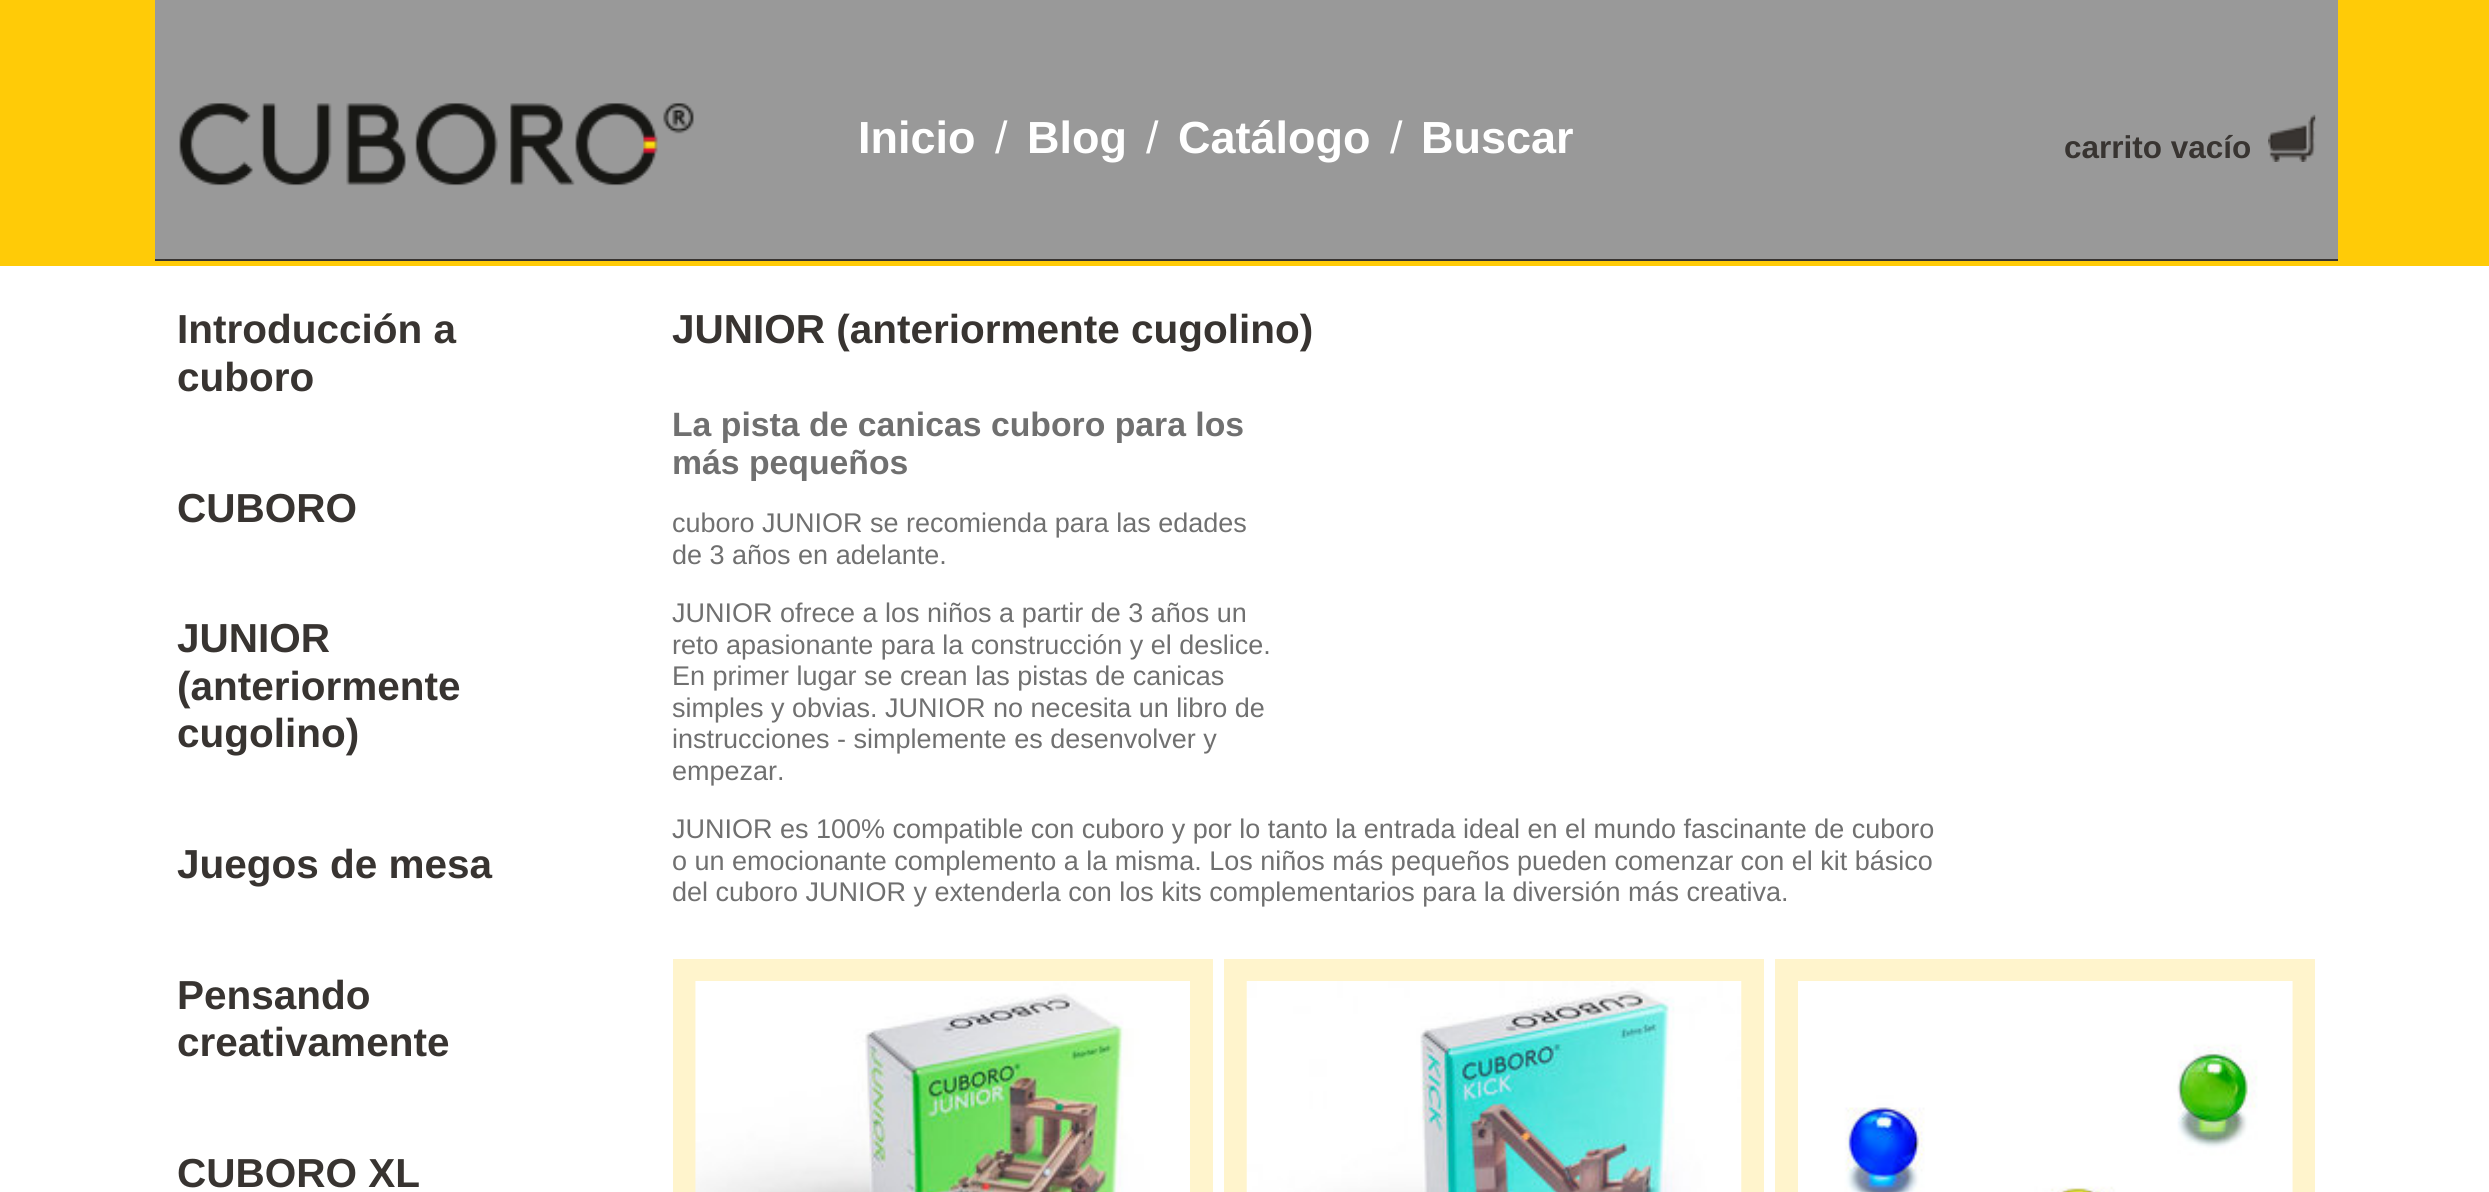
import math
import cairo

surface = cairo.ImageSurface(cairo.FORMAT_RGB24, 2489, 1192)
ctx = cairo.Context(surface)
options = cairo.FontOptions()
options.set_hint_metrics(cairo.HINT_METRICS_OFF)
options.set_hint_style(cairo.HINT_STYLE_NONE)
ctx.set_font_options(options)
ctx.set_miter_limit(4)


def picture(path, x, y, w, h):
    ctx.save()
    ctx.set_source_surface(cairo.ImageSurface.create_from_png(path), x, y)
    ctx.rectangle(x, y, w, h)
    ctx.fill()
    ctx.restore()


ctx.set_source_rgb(1, 0.796, 0.031)
ctx.paint()
ctx.set_source_rgb(0.6, 0.6, 0.6)
ctx.rectangle(155, 0, 2183, 259)
ctx.fill()
ctx.set_source_rgb(0.22, 0.204, 0.192)
ctx.rectangle(155, 259, 2183, 2)
ctx.fill()
picture("img1.png", 179, 103, 515, 83)
ctx.select_font_face("Liberation Sans", cairo.FONT_SLANT_NORMAL, cairo.FONT_WEIGHT_BOLD)
ctx.set_font_size(45)
ctx.set_source_rgb(1, 1, 1)
ctx.move_to(858, 153)
ctx.show_text("Inicio")
ctx.select_font_face("Liberation Sans")
ctx.move_to(995, 153)
ctx.show_text("/")
ctx.select_font_face("Liberation Sans", cairo.FONT_SLANT_NORMAL, cairo.FONT_WEIGHT_BOLD)
ctx.move_to(1027, 153)
ctx.show_text("Blog")
ctx.select_font_face("Liberation Sans")
ctx.move_to(1146, 153)
ctx.show_text("/")
ctx.select_font_face("Liberation Sans", cairo.FONT_SLANT_NORMAL, cairo.FONT_WEIGHT_BOLD)
ctx.move_to(1178, 153)
ctx.show_text("Catálogo")
ctx.select_font_face("Liberation Sans")
ctx.move_to(1390, 153)
ctx.show_text("/")
ctx.select_font_face("Liberation Sans", cairo.FONT_SLANT_NORMAL, cairo.FONT_WEIGHT_BOLD)
ctx.move_to(1421, 153)
ctx.show_text("Buscar")
picture("img2.png", 2268, 114, 48, 48)
ctx.set_font_size(31.5)
ctx.set_source_rgb(0.22, 0.204, 0.192)
ctx.move_to(2064, 158)
ctx.show_text("carrito vacío")
ctx.set_source_rgb(1, 1, 1)
ctx.rectangle(0, 266, 2489, 926)
ctx.fill()
ctx.set_font_size(40.5)
ctx.set_source_rgb(0.22, 0.204, 0.192)
ctx.move_to(177, 343)
ctx.show_text("Introducción a")
ctx.move_to(177, 391)
ctx.show_text("cuboro")
ctx.move_to(177, 522)
ctx.show_text("CUBORO")
ctx.move_to(177, 652)
ctx.show_text("JUNIOR")
ctx.move_to(177, 700)
ctx.show_text("(anteriormente")
ctx.move_to(177, 747)
ctx.show_text("cugolino)")
ctx.move_to(177, 878)
ctx.show_text("Juegos de mesa")
ctx.move_to(177, 1009)
ctx.show_text("Pensando")
ctx.move_to(177, 1056)
ctx.show_text("creativamente")
ctx.move_to(177, 1187)
ctx.show_text("CUBORO XL")
ctx.move_to(672, 343)
ctx.show_text("JUNIOR (anteriormente cugolino)")
ctx.set_font_size(33.75)
ctx.set_source_rgb(0.439, 0.439, 0.439)
ctx.move_to(672, 436)
ctx.show_text("La pista de canicas cuboro para los")
ctx.move_to(672, 474)
ctx.show_text("más pequeños")
ctx.select_font_face("Liberation Sans")
ctx.set_font_size(27)
ctx.move_to(672, 532)
ctx.show_text("cuboro JUNIOR se recomienda para las edades")
ctx.move_to(672, 564)
ctx.show_text("de 3 años en adelante.")
ctx.move_to(672, 622)
ctx.show_text("JUNIOR ofrece a los niños a partir de 3 años un")
ctx.move_to(672, 654)
ctx.show_text("reto apasionante para la construcción y el deslice.")
ctx.move_to(672, 685)
ctx.show_text("En primer lugar se crean las pistas de canicas")
ctx.move_to(672, 717)
ctx.show_text("simples y obvias. JUNIOR no necesita un libro de")
ctx.move_to(672, 748)
ctx.show_text("instrucciones - simplemente es desenvolver y")
ctx.move_to(672, 780)
ctx.show_text("empezar.")
ctx.move_to(672, 838)
ctx.show_text("JUNIOR es 100% compatible con cuboro y por lo tanto la entrada ideal en el mundo fascinante de cuboro")
ctx.move_to(672, 870)
ctx.show_text("o un emocionante complemento a la misma. Los niños más pequeños pueden comenzar con el kit básico")
ctx.move_to(672, 901)
ctx.show_text("del cuboro JUNIOR y extenderla con los kits complementarios para la diversión más creativa.")
ctx.rectangle(684.5, 970.5, 517, 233)
ctx.set_source_rgb(1, 0.957, 0.8)
ctx.set_line_width(23)
ctx.stroke()
picture("img3.png", 695, 981, 495, 211)
ctx.rectangle(1235.5, 970.5, 517, 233)
ctx.stroke()
picture("img4.png", 1246, 981, 496, 211)
ctx.rectangle(1786.5, 970.5, 517, 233)
ctx.stroke()
picture("img5.png", 1798, 981, 495, 211)
surface.write_to_png("page.png")
